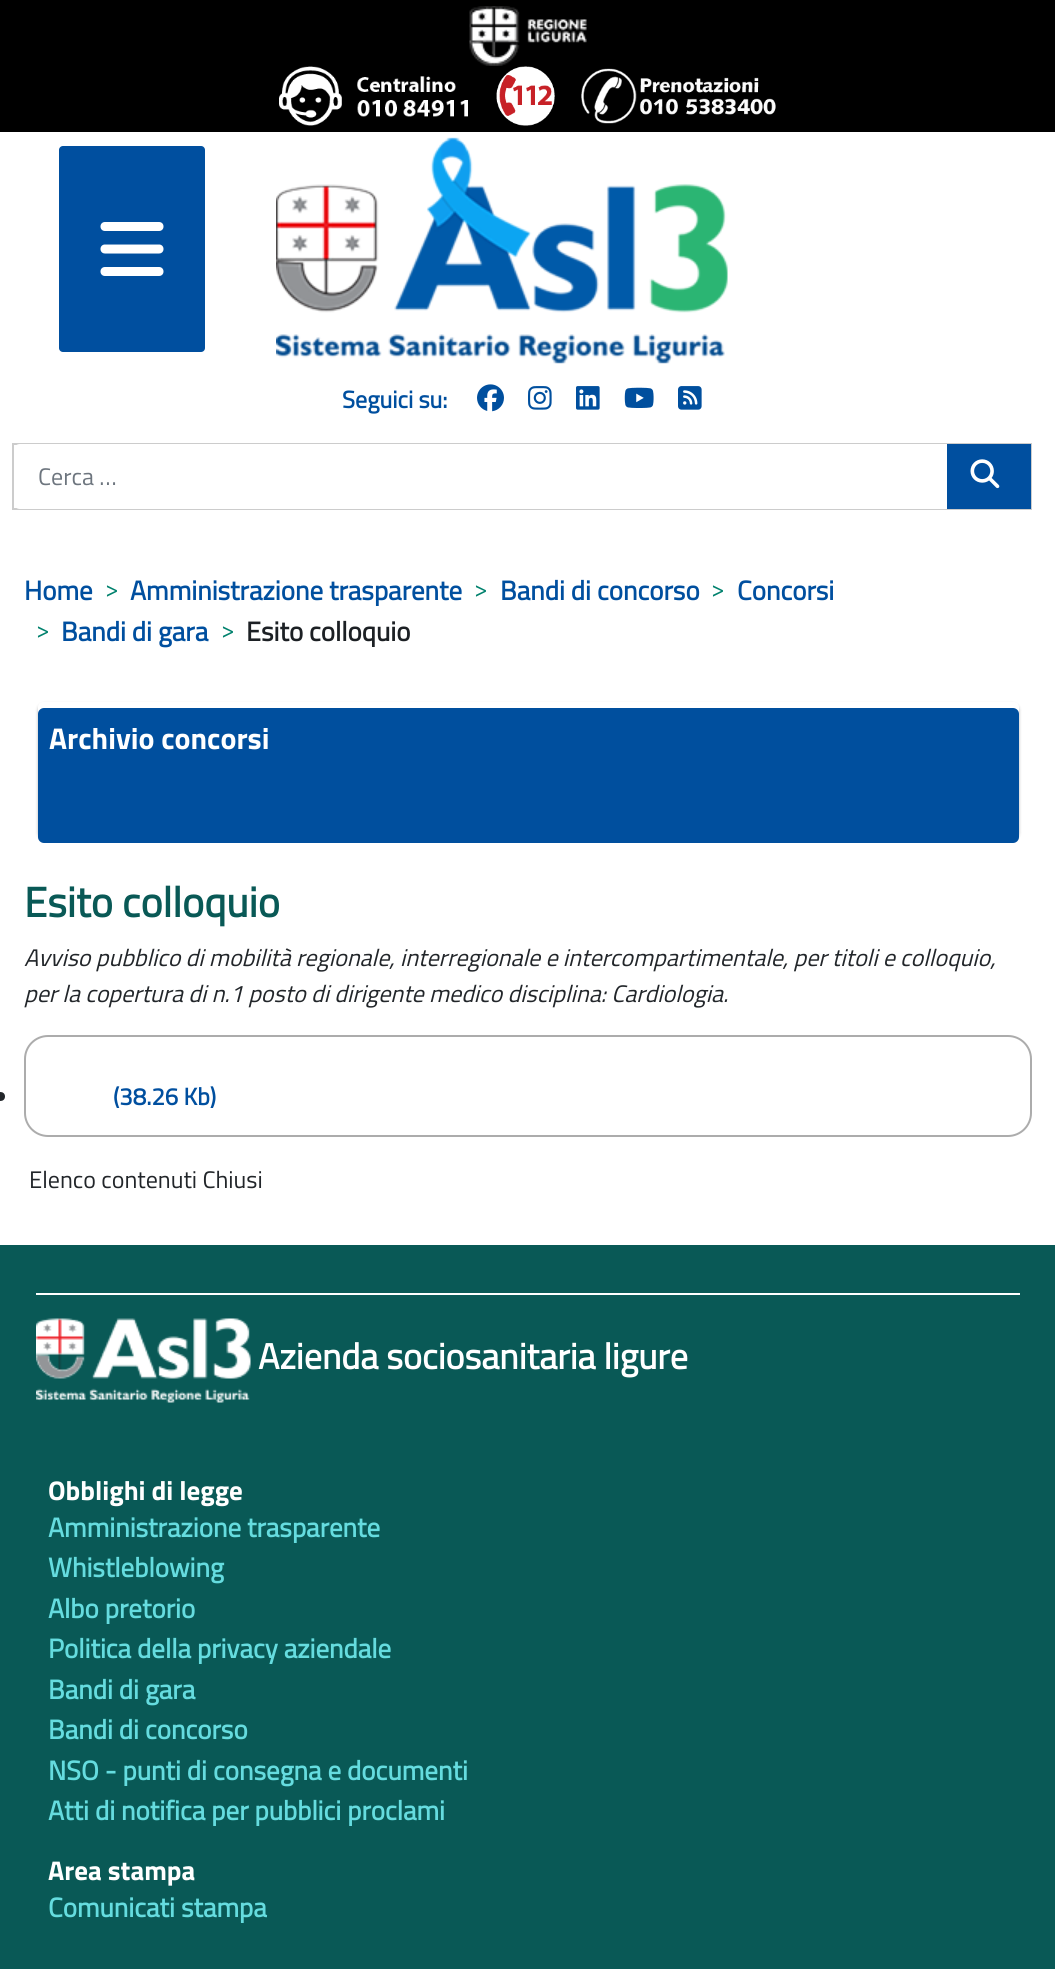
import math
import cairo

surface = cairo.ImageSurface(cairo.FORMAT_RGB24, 1055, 1969)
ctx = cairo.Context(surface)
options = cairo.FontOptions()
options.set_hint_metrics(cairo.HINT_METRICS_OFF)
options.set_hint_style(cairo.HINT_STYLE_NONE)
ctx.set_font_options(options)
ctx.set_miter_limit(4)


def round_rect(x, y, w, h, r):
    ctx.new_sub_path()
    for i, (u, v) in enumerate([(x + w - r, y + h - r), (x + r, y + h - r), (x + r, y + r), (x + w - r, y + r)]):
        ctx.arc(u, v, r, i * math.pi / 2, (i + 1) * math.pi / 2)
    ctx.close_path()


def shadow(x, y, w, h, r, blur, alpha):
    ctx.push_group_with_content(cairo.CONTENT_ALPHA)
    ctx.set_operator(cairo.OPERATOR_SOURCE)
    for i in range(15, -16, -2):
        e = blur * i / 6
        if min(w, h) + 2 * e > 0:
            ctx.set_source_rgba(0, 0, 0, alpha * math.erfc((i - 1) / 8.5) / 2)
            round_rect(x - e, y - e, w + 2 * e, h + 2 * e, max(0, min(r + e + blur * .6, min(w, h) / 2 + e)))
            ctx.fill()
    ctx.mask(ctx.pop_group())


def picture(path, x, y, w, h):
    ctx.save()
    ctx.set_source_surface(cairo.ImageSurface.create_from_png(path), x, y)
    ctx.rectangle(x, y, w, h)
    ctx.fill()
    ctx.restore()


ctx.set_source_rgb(1, 1, 1)
ctx.paint()
ctx.set_source_rgb(0, 0, 0)
ctx.rectangle(0, 0, 1055, 132)
ctx.fill()
picture("img1.png", 469, 6, 118, 60)
picture("img2.png", 279, 66, 189, 60)
picture("img3.png", 496, 66, 59, 60)
picture("img4.png", 581, 68, 195, 56)
ctx.set_source_rgb(0, 0.31, 0.624)
round_rect(58, 145, 148, 208, 5)
ctx.fill_preserve()
ctx.set_source_rgb(1, 1, 1)
ctx.stroke()
picture("img5.png", 100, 222, 64, 54)
picture("img6.png", 276, 137, 452, 227)
ctx.select_font_face("Titillium Web", cairo.FONT_SLANT_NORMAL, cairo.FONT_WEIGHT_BOLD)
ctx.set_font_size(24)
ctx.set_source_rgb(0, 0.31, 0.624)
ctx.move_to(342, 408)
ctx.show_text("Seguici su:")
picture("img7.png", 477, 384, 27, 28)
picture("img8.png", 528, 386, 24, 24)
picture("img9.png", 576, 386, 24, 24)
picture("img10.png", 624, 387, 30, 21)
picture("img11.png", 678, 386, 24, 24)
ctx.rectangle(13, 444, 1018, 65)
ctx.set_source_rgb(0.8, 0.8, 0.8)
ctx.stroke()
ctx.set_source_rgb(1, 1, 1)
ctx.new_path()
ctx.move_to(20, 444)
ctx.line_to(947, 444)
ctx.line_to(947, 509)
ctx.line_to(20, 509)
ctx.curve_to(16.5, 509, 14, 506.5, 14, 503)
ctx.line_to(14, 450)
ctx.curve_to(14, 446.5, 16.5, 444, 20, 444)
ctx.close_path()
ctx.fill()
ctx.select_font_face("Titillium Web")
ctx.set_source_rgb(0.427, 0.459, 0.494)
ctx.move_to(38, 485)
ctx.show_text("Cerca …")
ctx.set_source_rgb(0, 0.31, 0.624)
ctx.rectangle(947, 444, 84, 65)
ctx.fill()
picture("img12.png", 970, 459, 30, 30)
ctx.select_font_face("Titillium Web", cairo.FONT_SLANT_NORMAL, cairo.FONT_WEIGHT_BOLD)
ctx.set_font_size(27)
ctx.move_to(24, 600)
ctx.show_text("Home")
ctx.select_font_face("Titillium Web")
ctx.set_font_size(24)
ctx.set_source_rgb(0, 0.506, 0.427)
ctx.move_to(105, 597)
ctx.show_text(">")
ctx.select_font_face("Titillium Web", cairo.FONT_SLANT_NORMAL, cairo.FONT_WEIGHT_BOLD)
ctx.set_font_size(27)
ctx.set_source_rgb(0, 0.31, 0.624)
ctx.move_to(130, 600)
ctx.show_text("Amministrazione trasparente")
ctx.select_font_face("Titillium Web")
ctx.set_font_size(24)
ctx.set_source_rgb(0, 0.506, 0.427)
ctx.move_to(474, 597)
ctx.show_text(">")
ctx.select_font_face("Titillium Web", cairo.FONT_SLANT_NORMAL, cairo.FONT_WEIGHT_BOLD)
ctx.set_font_size(27)
ctx.set_source_rgb(0, 0.31, 0.624)
ctx.move_to(500, 600)
ctx.show_text("Bandi di concorso")
ctx.select_font_face("Titillium Web")
ctx.set_font_size(24)
ctx.set_source_rgb(0, 0.506, 0.427)
ctx.move_to(711, 597)
ctx.show_text(">")
ctx.select_font_face("Titillium Web", cairo.FONT_SLANT_NORMAL, cairo.FONT_WEIGHT_BOLD)
ctx.set_font_size(27)
ctx.set_source_rgb(0, 0.31, 0.624)
ctx.move_to(737, 600)
ctx.show_text("Concorsi")
ctx.select_font_face("Titillium Web")
ctx.set_font_size(24)
ctx.set_source_rgb(0, 0.506, 0.427)
ctx.move_to(36, 638)
ctx.show_text(">")
ctx.select_font_face("Titillium Web", cairo.FONT_SLANT_NORMAL, cairo.FONT_WEIGHT_BOLD)
ctx.set_font_size(27)
ctx.set_source_rgb(0, 0.31, 0.624)
ctx.move_to(61, 641)
ctx.show_text("Bandi di gara")
ctx.select_font_face("Titillium Web")
ctx.set_font_size(24)
ctx.set_source_rgb(0, 0.506, 0.427)
ctx.move_to(221, 638)
ctx.show_text(">")
ctx.select_font_face("Titillium Web", cairo.FONT_SLANT_NORMAL, cairo.FONT_WEIGHT_BOLD)
ctx.set_font_size(27)
ctx.set_source_rgb(0.11, 0.125, 0.141)
ctx.move_to(246, 641)
ctx.show_text("Esito colloquio")
ctx.save()
ctx.set_fill_rule(cairo.FILL_RULE_EVEN_ODD)
ctx.new_path()
ctx.move_to(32, 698)
ctx.line_to(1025, 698)
ctx.line_to(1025, 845)
ctx.line_to(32, 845)
ctx.close_path()
ctx.move_to(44, 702)
ctx.line_to(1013, 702)
ctx.curve_to(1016.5, 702, 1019, 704.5, 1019, 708)
ctx.line_to(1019, 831)
ctx.curve_to(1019, 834.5, 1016.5, 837, 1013, 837)
ctx.line_to(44, 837)
ctx.curve_to(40.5, 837, 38, 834.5, 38, 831)
ctx.line_to(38, 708)
ctx.curve_to(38, 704.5, 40.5, 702, 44, 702)
ctx.close_path()
ctx.clip()
ctx.set_source_rgb(0.196, 0.196, 0.196)
shadow(38, 704, 981, 135, 6, 1.5, 0.35)
ctx.restore()
ctx.set_source_rgb(0, 0.31, 0.62)
round_rect(38, 708, 981, 135, 6)
ctx.fill()
ctx.select_font_face("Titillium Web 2", cairo.FONT_SLANT_NORMAL, cairo.FONT_WEIGHT_BOLD)
ctx.set_font_size(30)
ctx.set_source_rgb(1, 1, 1)
ctx.move_to(49, 749)
ctx.show_text("Archivio concorsi")
ctx.select_font_face("Titillium Web", cairo.FONT_SLANT_NORMAL, cairo.FONT_WEIGHT_BOLD)
ctx.set_font_size(42)
ctx.set_source_rgb(0.039, 0.349, 0.337)
ctx.move_to(24, 917)
ctx.show_text("Esito colloquio")
ctx.select_font_face("Titillium Web", cairo.FONT_SLANT_ITALIC)
ctx.set_font_size(24)
ctx.set_source_rgb(0.133, 0.149, 0.165)
ctx.move_to(24, 966)
ctx.show_text("Avviso pubblico di mobilità regionale, interregionale e intercompartimentale, per titoli e colloquio,")
ctx.move_to(24, 1002)
ctx.show_text("per la copertura di n.1 posto di dirigente medico disciplina: Cardiologia.")
round_rect(25, 1036, 1006, 100, 23)
ctx.set_source_rgb(0.675, 0.675, 0.675)
ctx.stroke()
ctx.set_source_rgb(0.133, 0.149, 0.165)
ctx.arc(0.5, 1096.5, 4.5, 0, 2 * math.pi)
ctx.fill()
ctx.select_font_face("Titillium Web", cairo.FONT_SLANT_NORMAL, cairo.FONT_WEIGHT_BOLD)
ctx.set_source_rgb(0, 0.31, 0.624)
ctx.move_to(113, 1105)
ctx.show_text("(38.26 Kb)")
ctx.select_font_face("Titillium Web")
ctx.set_source_rgb(0.133, 0.149, 0.165)
ctx.move_to(29, 1188)
ctx.show_text("Elenco contenuti Chiusi")
ctx.set_source_rgb(0.039, 0.349, 0.337)
ctx.rectangle(0, 1245, 1055, 724)
ctx.fill()
ctx.set_source_rgb(1, 1, 1)
ctx.rectangle(36, 1293, 984, 2)
ctx.fill()
picture("img13.png", 36, 1318, 215, 85)
ctx.select_font_face("Titillium Web", cairo.FONT_SLANT_NORMAL, cairo.FONT_WEIGHT_BOLD)
ctx.set_font_size(36)
ctx.move_to(258, 1369)
ctx.show_text("Azienda sociosanitaria ligure")
ctx.select_font_face("Titillium Web 2", cairo.FONT_SLANT_NORMAL, cairo.FONT_WEIGHT_BOLD)
ctx.set_font_size(27)
ctx.move_to(48, 1500)
ctx.show_text("Obblighi di legge")
ctx.select_font_face("Titillium Web", cairo.FONT_SLANT_NORMAL, cairo.FONT_WEIGHT_BOLD)
ctx.set_source_rgb(0.396, 0.863, 0.875)
ctx.move_to(48, 1537)
ctx.show_text("Amministrazione trasparente")
ctx.move_to(48, 1577)
ctx.show_text("Whistleblowing")
ctx.move_to(48, 1618)
ctx.show_text("Albo pretorio")
ctx.move_to(48, 1658)
ctx.show_text("Politica della privacy aziendale")
ctx.move_to(48, 1699)
ctx.show_text("Bandi di gara")
ctx.move_to(48, 1739)
ctx.show_text("Bandi di concorso")
ctx.move_to(48, 1780)
ctx.show_text("NSO - punti di consegna e documenti")
ctx.move_to(48, 1820)
ctx.show_text("Atti di notifica per pubblici proclami")
ctx.select_font_face("Titillium Web 2", cairo.FONT_SLANT_NORMAL, cairo.FONT_WEIGHT_BOLD)
ctx.set_source_rgb(1, 1, 1)
ctx.move_to(48, 1880)
ctx.show_text("Area stampa")
ctx.select_font_face("Titillium Web", cairo.FONT_SLANT_NORMAL, cairo.FONT_WEIGHT_BOLD)
ctx.set_source_rgb(0.396, 0.863, 0.875)
ctx.move_to(48, 1917)
ctx.show_text("Comunicati stampa")
surface.write_to_png("page.png")
